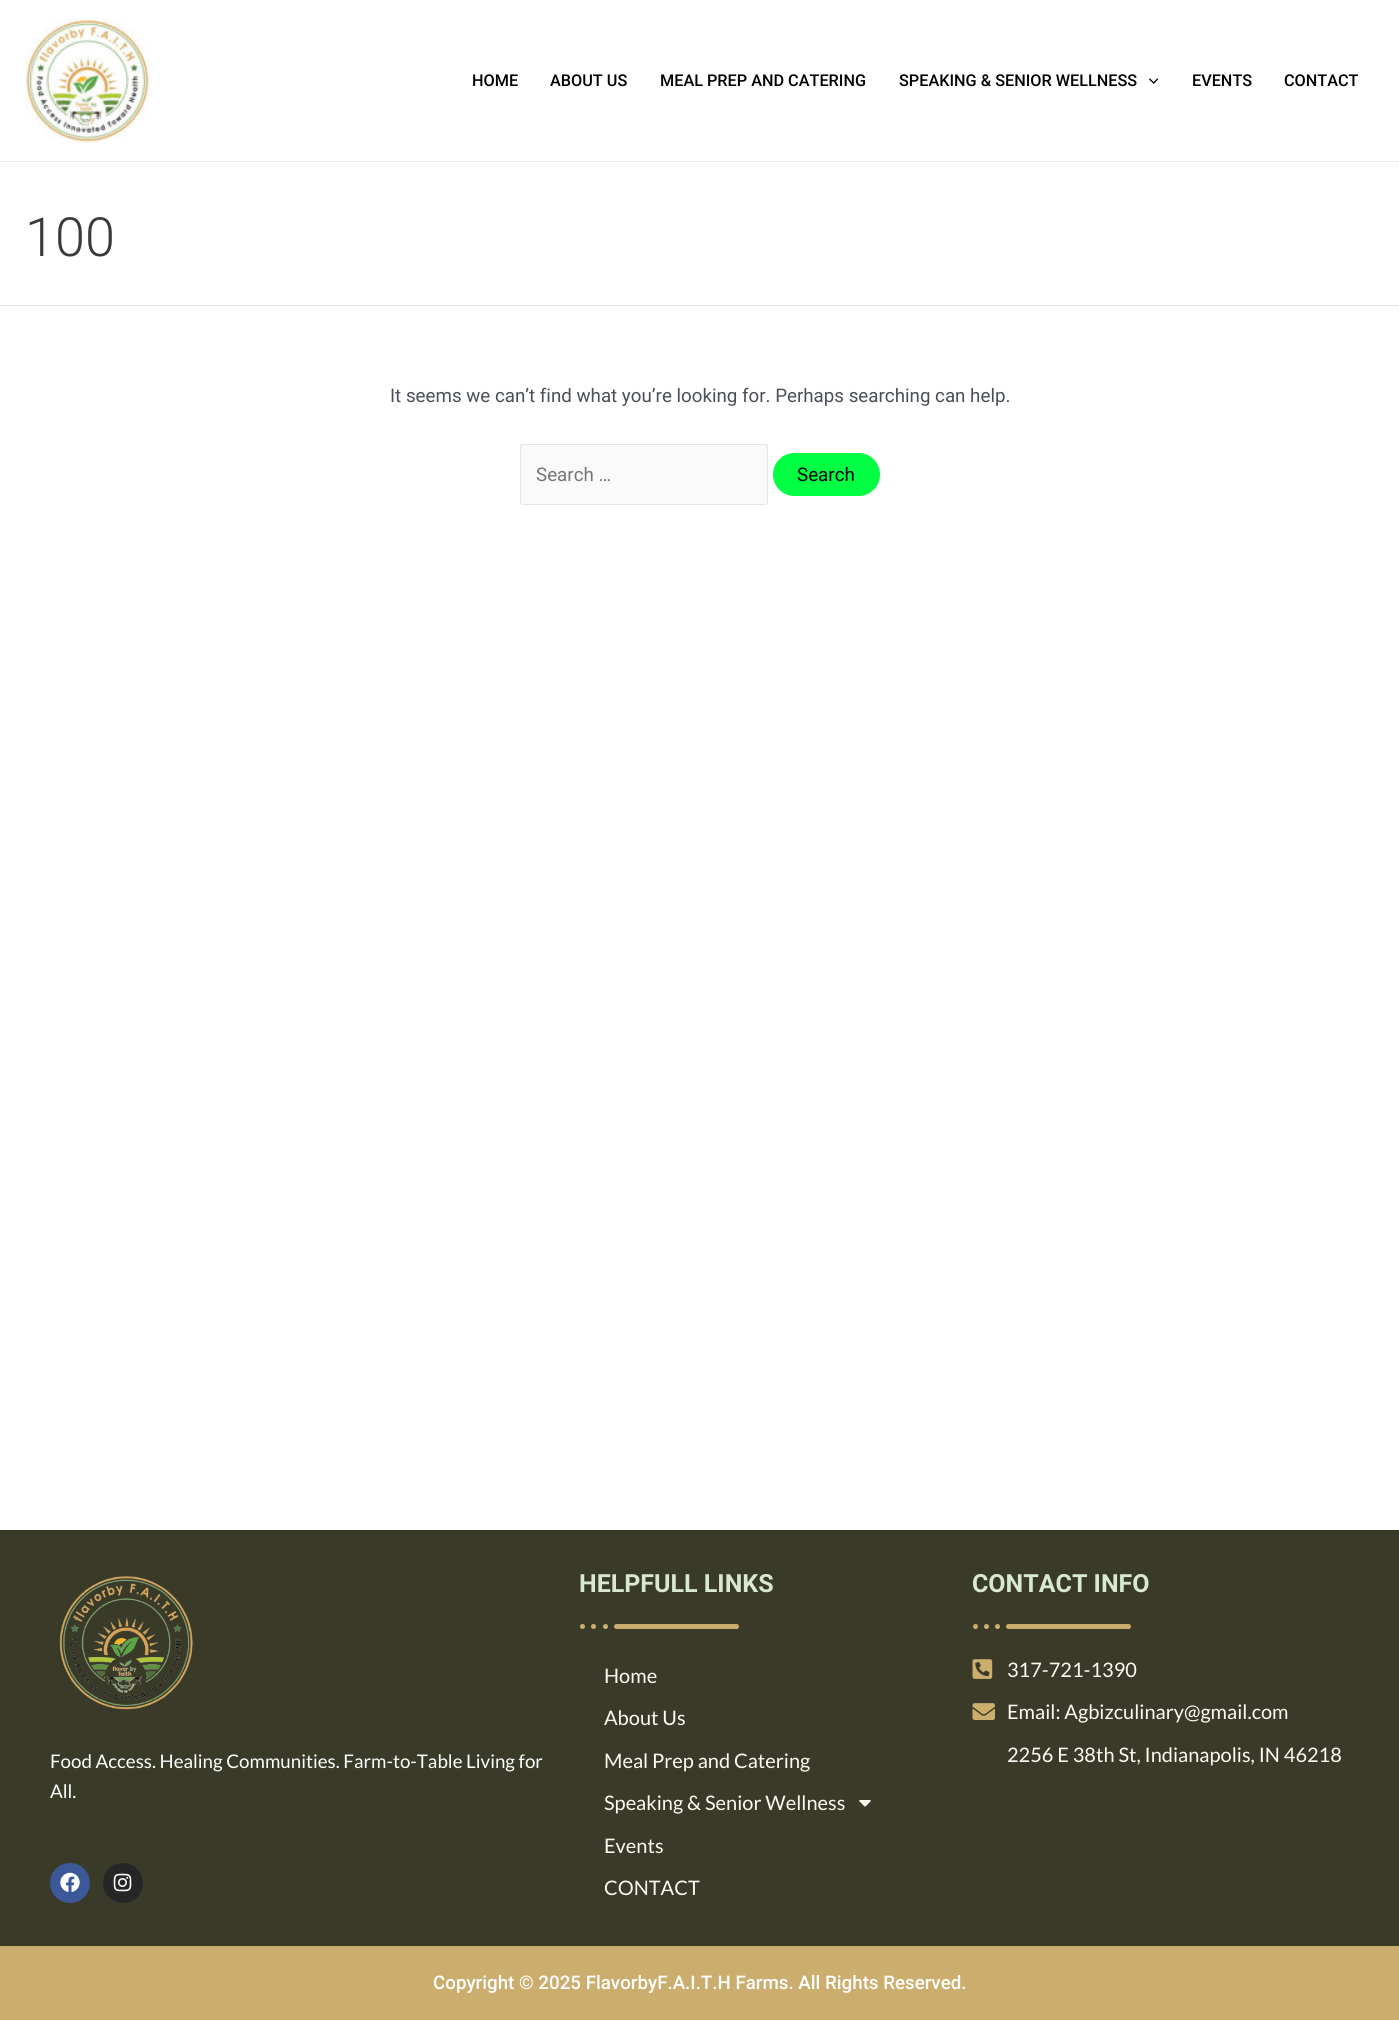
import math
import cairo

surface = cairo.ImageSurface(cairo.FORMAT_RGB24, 1399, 2020)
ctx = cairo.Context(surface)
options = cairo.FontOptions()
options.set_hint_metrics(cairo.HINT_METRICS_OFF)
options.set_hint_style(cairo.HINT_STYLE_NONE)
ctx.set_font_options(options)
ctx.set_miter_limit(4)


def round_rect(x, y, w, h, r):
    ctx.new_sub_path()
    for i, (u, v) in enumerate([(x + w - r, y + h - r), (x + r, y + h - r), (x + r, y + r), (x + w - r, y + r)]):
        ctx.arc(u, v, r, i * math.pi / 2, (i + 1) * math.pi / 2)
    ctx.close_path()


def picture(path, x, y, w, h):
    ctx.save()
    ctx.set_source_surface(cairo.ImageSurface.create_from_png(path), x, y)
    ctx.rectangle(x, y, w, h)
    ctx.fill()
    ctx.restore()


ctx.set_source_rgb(1, 1, 1)
ctx.paint()
ctx.set_source_rgb(0.918, 0.918, 0.918)
ctx.rectangle(0, 161, 1399, 1)
ctx.fill()
picture("img1.png", 25, 18, 125, 125)
ctx.select_font_face("Roboto Medium")
ctx.set_font_size(16.25)
ctx.set_source_rgb(0, 0, 0)
ctx.move_to(472, 86)
ctx.show_text("HOME")
ctx.move_to(550, 86)
ctx.show_text("ABOUT US")
ctx.move_to(660, 86)
ctx.show_text("MEAL PREP AND CATERING")
ctx.move_to(899, 86)
ctx.show_text("SPEAKING & SENIOR WELLNESS")
picture("img2.png", 1149, 78, 10, 6)
ctx.move_to(1192, 86)
ctx.show_text("EVENTS")
ctx.move_to(1284, 86)
ctx.show_text("CONTACT")
ctx.set_source_rgb(0.898, 0.898, 0.898)
ctx.rectangle(0, 305, 1399, 1)
ctx.fill()
ctx.select_font_face("Roboto Light")
ctx.set_font_size(54)
ctx.set_source_rgb(0.227, 0.227, 0.227)
ctx.move_to(25, 256)
ctx.show_text("100")
ctx.select_font_face("Roboto")
ctx.set_font_size(18.75)
ctx.set_source_rgb(0.294, 0.31, 0.345)
ctx.move_to(390, 402)
ctx.show_text("It seems we can’t find what you’re looking for. Perhaps searching can help.")
ctx.set_source_rgb(0.98, 0.98, 0.98)
round_rect(520.5, 444.5, 247, 60, 2)
ctx.fill_preserve()
ctx.set_source_rgb(0.898, 0.898, 0.898)
ctx.set_line_width(1)
ctx.stroke()
ctx.set_source_rgb(0.459, 0.459, 0.459)
ctx.move_to(536, 481)
ctx.show_text("Search …")
ctx.set_source_rgb(0, 1, 0.263)
round_rect(773, 453, 107, 43, 21.5)
ctx.fill()
ctx.set_source_rgb(0, 0, 0)
ctx.move_to(797, 481)
ctx.show_text("Search")
ctx.set_source_rgb(0.227, 0.227, 0.161)
ctx.rectangle(0, 1530, 1399, 416)
ctx.fill()
ctx.select_font_face("Roboto", cairo.FONT_SLANT_NORMAL, cairo.FONT_WEIGHT_BOLD)
ctx.set_font_size(25)
ctx.set_source_rgb(0.847, 0.91, 0.82)
ctx.move_to(579, 1592)
ctx.show_text("HELPFULL LINKS")
ctx.set_source_rgb(0.796, 0.682, 0.431)
round_rect(614, 1624, 125, 5, 2.5)
ctx.fill()
ctx.arc(605.5, 1626.5, 2.5, 0, 2 * math.pi)
ctx.fill()
ctx.arc(593.5, 1626.5, 2.5, 0, 2 * math.pi)
ctx.fill()
ctx.arc(582.5, 1626.5, 2.5, 0, 2 * math.pi)
ctx.fill()
ctx.select_font_face("Lato")
ctx.set_font_size(20)
ctx.set_source_rgb(1, 0.976, 0.949)
ctx.move_to(604, 1683)
ctx.show_text("Home")
ctx.move_to(604, 1725)
ctx.show_text("About Us")
ctx.move_to(604, 1768)
ctx.show_text("Meal Prep and Catering")
ctx.move_to(604, 1810)
ctx.show_text("Speaking & Senior Wellness")
picture("img3.png", 859, 1800, 12, 7)
ctx.move_to(604, 1853)
ctx.show_text("Events")
ctx.move_to(604, 1895)
ctx.show_text("CONTACT")
ctx.select_font_face("Roboto", cairo.FONT_SLANT_NORMAL, cairo.FONT_WEIGHT_BOLD)
ctx.set_font_size(25)
ctx.set_source_rgb(0.847, 0.91, 0.82)
ctx.move_to(972, 1592)
ctx.show_text("CONTACT INFO")
ctx.set_source_rgb(0.796, 0.682, 0.431)
round_rect(1006, 1624, 125, 5, 2.5)
ctx.fill()
ctx.arc(997.5, 1626.5, 2.5, 0, 2 * math.pi)
ctx.fill()
ctx.arc(986.5, 1626.5, 2.5, 0, 2 * math.pi)
ctx.fill()
ctx.arc(975.5, 1626.5, 2.5, 0, 2 * math.pi)
ctx.fill()
picture("img4.png", 972, 1659, 21, 20)
ctx.select_font_face("Lato")
ctx.set_font_size(20)
ctx.set_source_rgb(1, 0.976, 0.949)
ctx.move_to(1007, 1677)
ctx.show_text("317-721-1390")
picture("img5.png", 972, 1703, 23, 17)
ctx.move_to(1007, 1719)
ctx.show_text("Email: Agbizculinary@gmail.com")
ctx.move_to(1007, 1762)
ctx.show_text("2256 E 38th St, Indianapolis, IN 46218")
picture("img6.png", 59, 1576, 134, 134)
ctx.set_font_size(18.75)
ctx.set_source_rgb(1, 1, 1)
ctx.move_to(50, 1768)
ctx.show_text("Food Access. Healing Communities. Farm-to-Table Living for")
ctx.move_to(50, 1798)
ctx.show_text("All.")
ctx.set_source_rgb(0.231, 0.349, 0.596)
ctx.new_path()
ctx.arc(70, 1883, 20, 0, 2 * math.pi)
ctx.fill()
picture("img7.png", 60, 1872, 20, 20)
ctx.set_source_rgb(0.149, 0.149, 0.149)
ctx.arc(123, 1883, 20, 0, 2 * math.pi)
ctx.fill()
picture("img8.png", 113, 1873, 19, 19)
ctx.set_source_rgb(0.796, 0.682, 0.431)
ctx.rectangle(0, 1946, 1399, 74)
ctx.fill()
ctx.select_font_face("Roboto Medium")
ctx.set_source_rgb(1, 1, 1)
ctx.move_to(433, 1989)
ctx.show_text("Copyright © 2025 FlavorbyF.A.I.T.H Farms. All Rights Reserved.")
surface.write_to_png("page.png")
